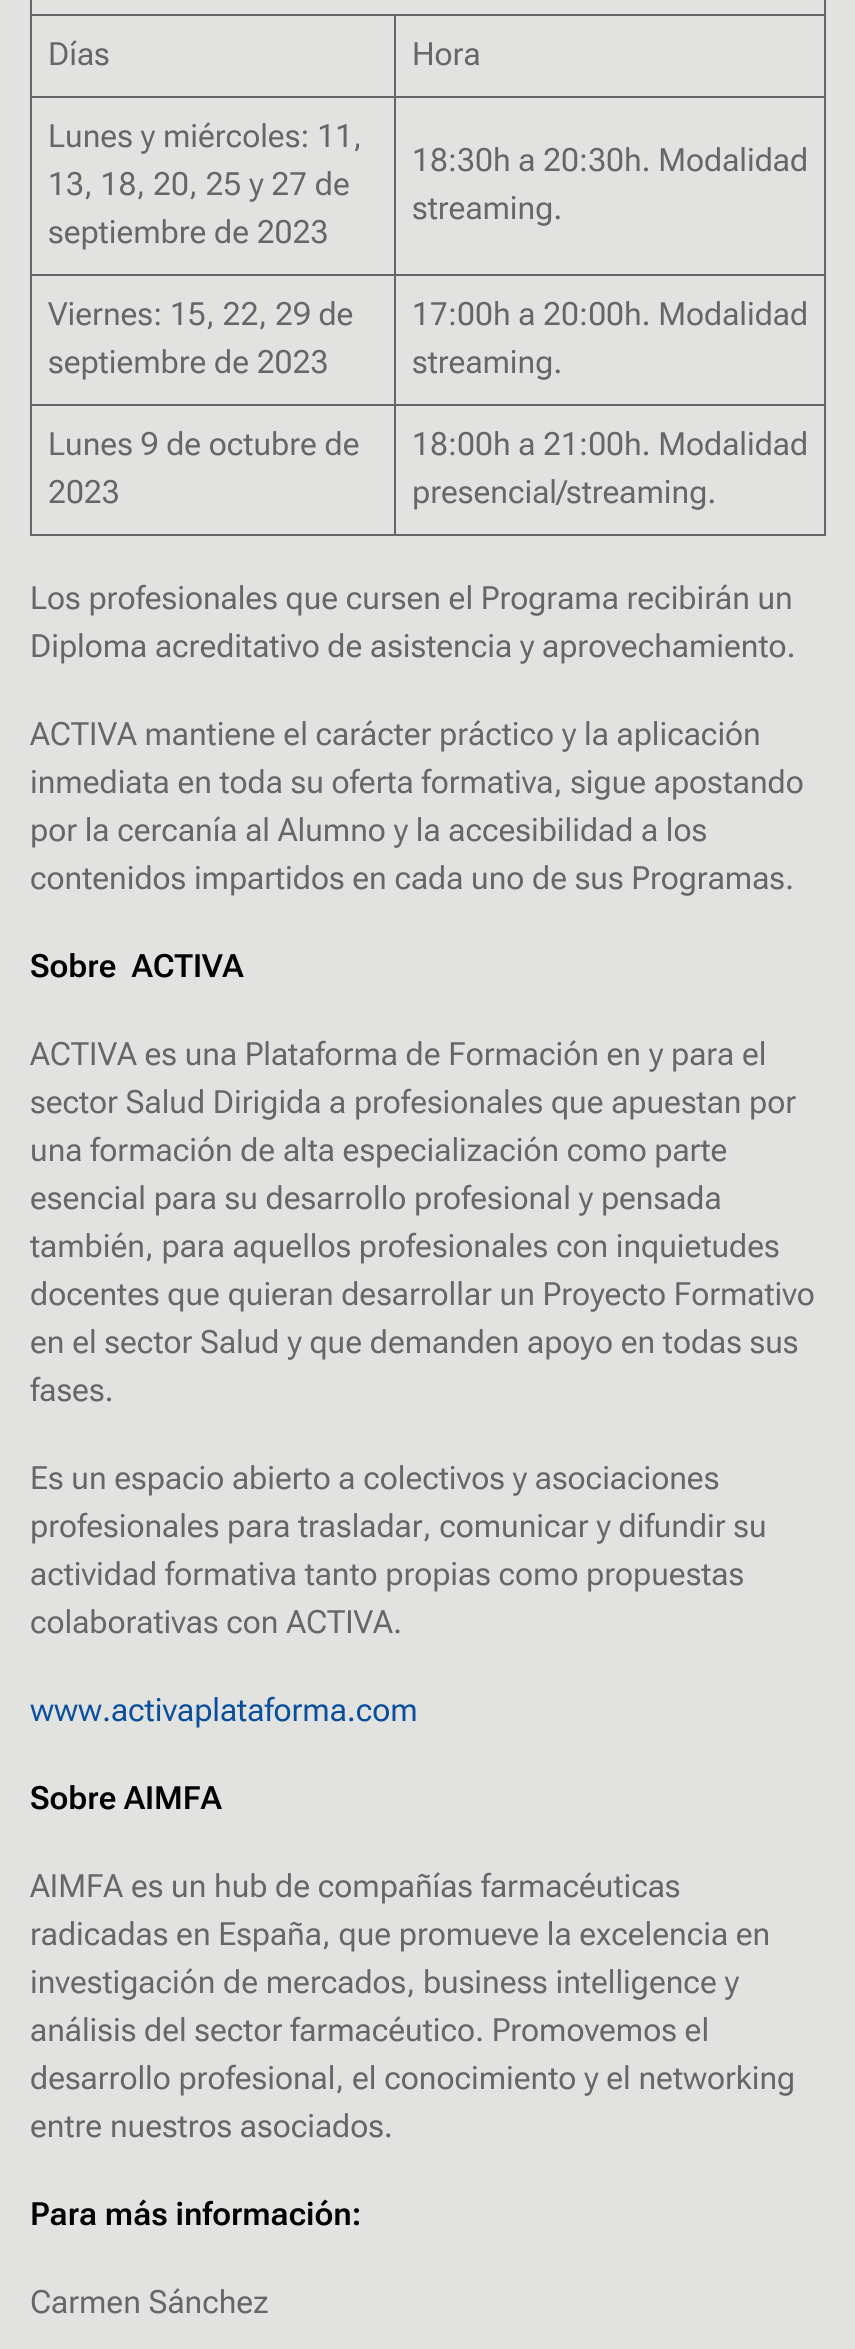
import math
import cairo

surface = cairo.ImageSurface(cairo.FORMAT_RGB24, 855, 2349)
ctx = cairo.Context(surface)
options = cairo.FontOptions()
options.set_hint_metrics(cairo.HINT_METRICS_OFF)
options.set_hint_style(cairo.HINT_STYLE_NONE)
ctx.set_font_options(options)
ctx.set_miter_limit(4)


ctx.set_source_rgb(0.886, 0.886, 0.882)
ctx.paint()
ctx.set_source_rgb(0.4, 0.4, 0.4)
ctx.rectangle(394, 14, 432, 2)
ctx.fill()
ctx.rectangle(394, 96, 432, 2)
ctx.fill()
ctx.rectangle(394, 274, 432, 2)
ctx.fill()
ctx.rectangle(394, 404, 432, 2)
ctx.fill()
ctx.rectangle(824, 404, 2, 132)
ctx.fill()
ctx.rectangle(394, 534, 432, 2)
ctx.fill()
ctx.rectangle(394, 404, 2, 132)
ctx.fill()
ctx.rectangle(30, 404, 366, 2)
ctx.fill()
ctx.rectangle(394, 274, 2, 132)
ctx.fill()
ctx.rectangle(30, 274, 366, 2)
ctx.fill()
ctx.rectangle(394, 96, 2, 180)
ctx.fill()
ctx.rectangle(30, 96, 366, 2)
ctx.fill()
ctx.rectangle(394, 14, 2, 84)
ctx.fill()
ctx.rectangle(30, 14, 366, 2)
ctx.fill()
ctx.rectangle(30, 534, 366, 2)
ctx.fill()
ctx.rectangle(30, 404, 2, 132)
ctx.fill()
ctx.rectangle(30, 274, 2, 132)
ctx.fill()
ctx.rectangle(30, 96, 2, 180)
ctx.fill()
ctx.rectangle(30, 0, 2, 98)
ctx.fill()
ctx.select_font_face("Roboto Flex")
ctx.set_font_size(32)
ctx.move_to(48, 65)
ctx.show_text("Días")
ctx.rectangle(824, 274, 2, 132)
ctx.fill()
ctx.rectangle(824, 96, 2, 180)
ctx.fill()
ctx.rectangle(824, 0, 2, 98)
ctx.fill()
ctx.move_to(412, 65)
ctx.show_text("Hora")
ctx.move_to(48, 147)
ctx.show_text("Lunes y miércoles: 11,")
ctx.move_to(48, 195)
ctx.show_text("13, 18, 20, 25 y 27 de")
ctx.move_to(48, 243)
ctx.show_text("septiembre de 2023")
ctx.move_to(412, 171)
ctx.show_text("18:30h a 20:30h. Modalidad")
ctx.move_to(412, 219)
ctx.show_text("streaming.")
ctx.move_to(48, 325)
ctx.show_text("Viernes: 15, 22, 29 de")
ctx.move_to(48, 373)
ctx.show_text("septiembre de 2023")
ctx.move_to(412, 325)
ctx.show_text("17:00h a 20:00h. Modalidad")
ctx.move_to(412, 373)
ctx.show_text("streaming.")
ctx.move_to(48, 455)
ctx.show_text("Lunes 9 de octubre de")
ctx.move_to(48, 503)
ctx.show_text("2023")
ctx.move_to(412, 455)
ctx.show_text("18:00h a 21:00h. Modalidad")
ctx.move_to(412, 503)
ctx.show_text("presencial/streaming.")
ctx.move_to(30, 609)
ctx.show_text("Los profesionales que cursen el Programa recibirán un")
ctx.move_to(30, 657)
ctx.show_text("Diploma acreditativo de asistencia y aprovechamiento.")
ctx.move_to(30, 745)
ctx.show_text("ACTIVA mantiene el carácter práctico y la aplicación")
ctx.move_to(30, 793)
ctx.show_text("inmediata en toda su oferta formativa, sigue apostando")
ctx.move_to(30, 841)
ctx.show_text("por la cercanía al Alumno y la accesibilidad a los")
ctx.move_to(30, 889)
ctx.show_text("contenidos impartidos en cada uno de sus Programas.")
ctx.select_font_face("Roboto Flex SemiBold")
ctx.set_source_rgb(0.016, 0.008, 0.008)
ctx.move_to(30, 977)
ctx.show_text("Sobre  ACTIVA")
ctx.select_font_face("Roboto Flex")
ctx.set_source_rgb(0.4, 0.4, 0.4)
ctx.move_to(30, 1065)
ctx.show_text("ACTIVA es una Plataforma de Formación en y para el")
ctx.move_to(30, 1113)
ctx.show_text("sector Salud Dirigida a profesionales que apuestan por")
ctx.move_to(30, 1161)
ctx.show_text("una formación de alta especialización como parte")
ctx.move_to(30, 1209)
ctx.show_text("esencial para su desarrollo profesional y pensada")
ctx.move_to(30, 1257)
ctx.show_text("también, para aquellos profesionales con inquietudes")
ctx.move_to(30, 1305)
ctx.show_text("docentes que quieran desarrollar un Proyecto Formativo")
ctx.move_to(30, 1353)
ctx.show_text("en el sector Salud y que demanden apoyo en todas sus")
ctx.move_to(30, 1401)
ctx.show_text("fases.")
ctx.move_to(30, 1489)
ctx.show_text("Es un espacio abierto a colectivos y asociaciones")
ctx.move_to(30, 1537)
ctx.show_text("profesionales para trasladar, comunicar y difundir su")
ctx.move_to(30, 1585)
ctx.show_text("actividad formativa tanto propias como propuestas")
ctx.move_to(30, 1633)
ctx.show_text("colaborativas con ACTIVA.")
ctx.set_source_rgb(0.035, 0.306, 0.608)
ctx.move_to(30, 1721)
ctx.show_text("www.activaplataforma.com")
ctx.select_font_face("Roboto Flex SemiBold")
ctx.set_source_rgb(0.016, 0.008, 0.008)
ctx.move_to(30, 1809)
ctx.show_text("Sobre AIMFA")
ctx.select_font_face("Roboto Flex")
ctx.set_source_rgb(0.4, 0.4, 0.4)
ctx.move_to(30, 1897)
ctx.show_text("AIMFA es un hub de compañías farmacéuticas")
ctx.move_to(30, 1945)
ctx.show_text("radicadas en España, que promueve la excelencia en")
ctx.move_to(30, 1993)
ctx.show_text("investigación de mercados, business intelligence y")
ctx.move_to(30, 2041)
ctx.show_text("análisis del sector farmacéutico. Promovemos el")
ctx.move_to(30, 2089)
ctx.show_text("desarrollo profesional, el conocimiento y el networking")
ctx.move_to(30, 2137)
ctx.show_text("entre nuestros asociados.")
ctx.select_font_face("Roboto Flex SemiBold")
ctx.set_source_rgb(0.016, 0.008, 0.008)
ctx.move_to(30, 2225)
ctx.show_text("Para más información:")
ctx.select_font_face("Roboto Flex")
ctx.set_source_rgb(0.4, 0.4, 0.4)
ctx.move_to(30, 2313)
ctx.show_text("Carmen Sánchez")
surface.write_to_png("page.png")
